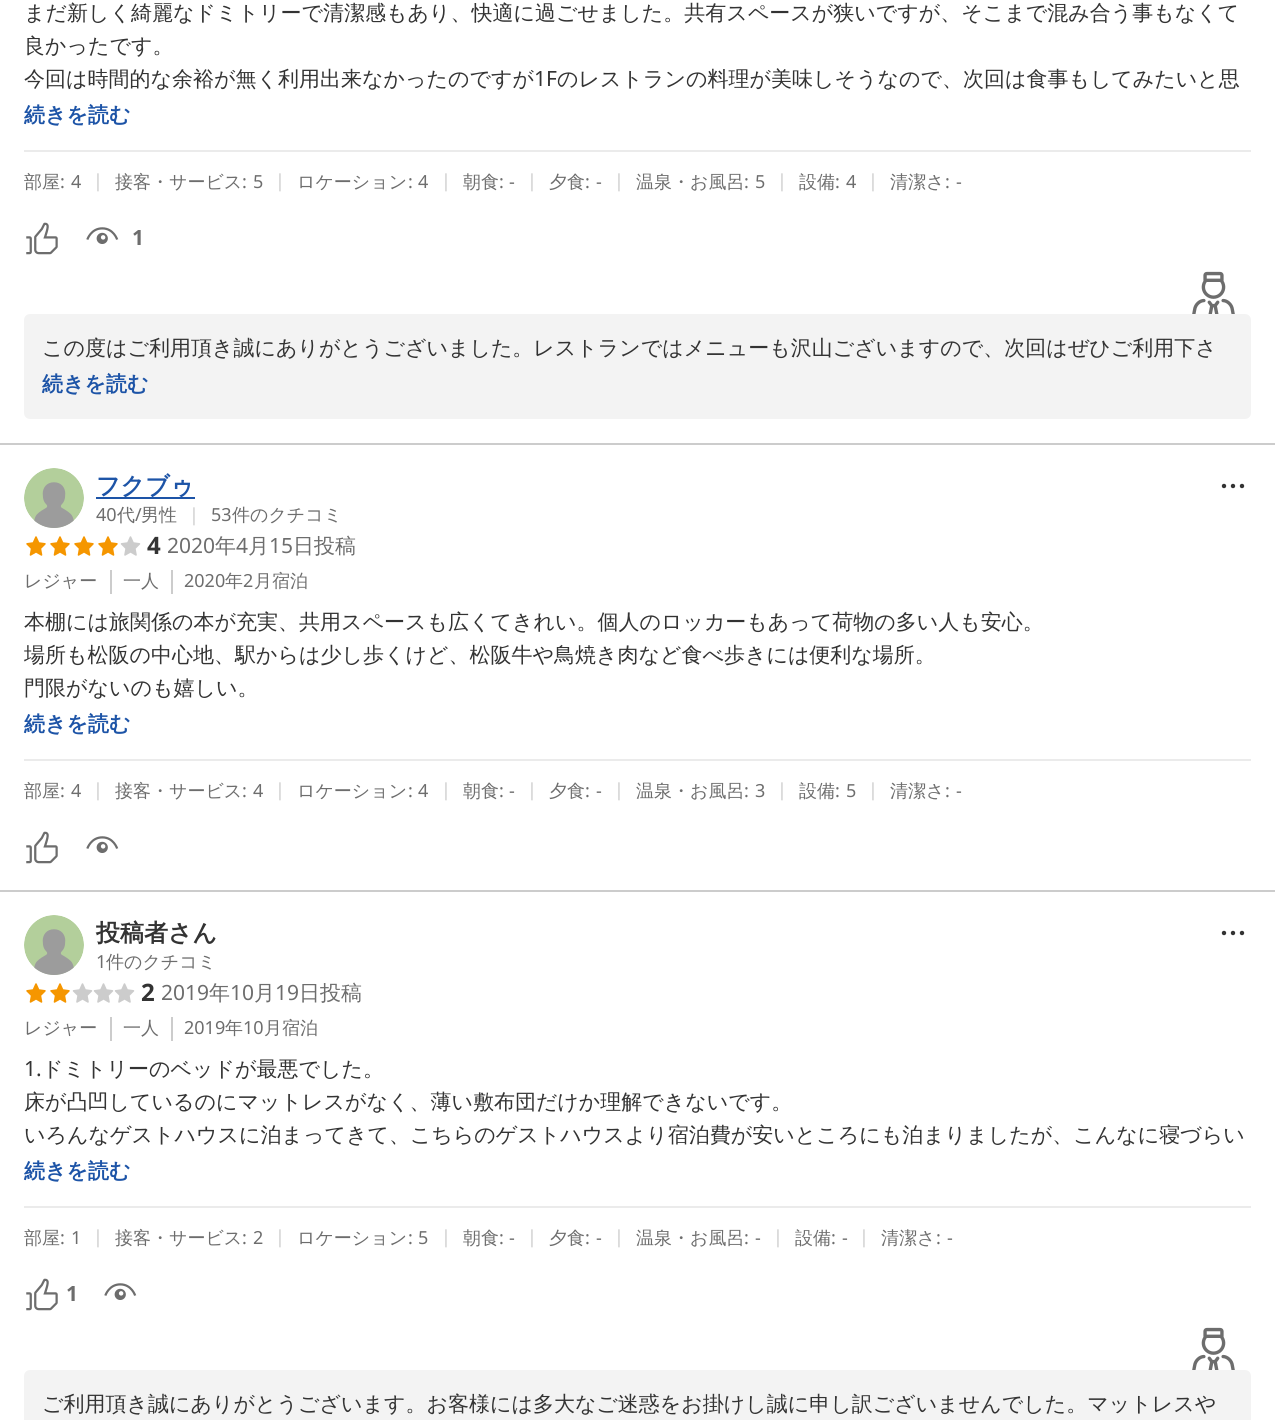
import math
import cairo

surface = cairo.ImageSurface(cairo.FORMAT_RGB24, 1275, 1420)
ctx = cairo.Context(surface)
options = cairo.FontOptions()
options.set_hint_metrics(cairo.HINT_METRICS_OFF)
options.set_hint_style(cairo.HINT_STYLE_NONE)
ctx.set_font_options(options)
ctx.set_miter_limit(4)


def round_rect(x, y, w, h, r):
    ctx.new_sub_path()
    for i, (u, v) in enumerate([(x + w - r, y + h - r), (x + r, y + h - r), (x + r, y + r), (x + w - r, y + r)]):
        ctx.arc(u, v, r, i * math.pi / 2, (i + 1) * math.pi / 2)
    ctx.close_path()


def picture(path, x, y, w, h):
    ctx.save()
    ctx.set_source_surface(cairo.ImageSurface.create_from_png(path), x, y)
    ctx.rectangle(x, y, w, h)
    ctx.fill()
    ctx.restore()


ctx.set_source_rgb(1, 1, 1)
ctx.paint()
ctx.select_font_face("WenQuanYi Zen Hei Medium")
ctx.set_font_size(21)
ctx.set_source_rgb(0.2, 0.2, 0.2)
ctx.move_to(24, 20)
ctx.show_text("まだ新しく綺麗なドミトリーで清潔感もあり、快適に過ごせました。共有スペースが狭いですが、そこまで混み合う事もなくて")
ctx.move_to(24, 53)
ctx.show_text("良かったです。")
ctx.move_to(24, 86)
ctx.show_text("今回は時間的な余裕が無く利用出来なかったのですが")
ctx.select_font_face("Noto Sans")
ctx.move_to(534, 86)
ctx.show_text("1F")
ctx.select_font_face("WenQuanYi Zen Hei Medium")
ctx.move_to(557, 86)
ctx.show_text("のレストランの料理が美味しそうなので、次回は食事もしてみたいと思")
ctx.select_font_face("WenQuanYi Zen Hei", cairo.FONT_SLANT_NORMAL, cairo.FONT_WEIGHT_BOLD)
ctx.set_source_rgb(0.114, 0.329, 0.655)
ctx.move_to(24, 122)
ctx.show_text("続きを読む")
ctx.set_source_rgb(0.918, 0.918, 0.918)
ctx.rectangle(24, 150, 1227, 2)
ctx.fill()
ctx.select_font_face("WenQuanYi Zen Hei Medium")
ctx.set_font_size(18)
ctx.set_source_rgb(0.427, 0.427, 0.427)
ctx.move_to(24, 188)
ctx.show_text("部屋")
ctx.select_font_face("Noto Sans")
ctx.move_to(60, 188)
ctx.show_text(":")
ctx.move_to(71, 188)
ctx.show_text("4")
ctx.set_source_rgb(0.8, 0.8, 0.8)
ctx.move_to(93, 187)
ctx.show_text("|")
ctx.select_font_face("WenQuanYi Zen Hei Medium")
ctx.set_source_rgb(0.427, 0.427, 0.427)
ctx.move_to(115, 188)
ctx.show_text("接客・サービス")
ctx.select_font_face("Noto Sans")
ctx.move_to(242, 188)
ctx.show_text(":")
ctx.move_to(253, 188)
ctx.show_text("5")
ctx.set_source_rgb(0.8, 0.8, 0.8)
ctx.move_to(275, 187)
ctx.show_text("|")
ctx.select_font_face("WenQuanYi Zen Hei Medium")
ctx.set_source_rgb(0.427, 0.427, 0.427)
ctx.move_to(297, 188)
ctx.show_text("ロケーション")
ctx.select_font_face("Noto Sans")
ctx.move_to(408, 188)
ctx.show_text(":")
ctx.move_to(418, 188)
ctx.show_text("4")
ctx.set_source_rgb(0.8, 0.8, 0.8)
ctx.move_to(441, 187)
ctx.show_text("|")
ctx.select_font_face("WenQuanYi Zen Hei Medium")
ctx.set_source_rgb(0.427, 0.427, 0.427)
ctx.move_to(463, 188)
ctx.show_text("朝食")
ctx.select_font_face("Noto Sans")
ctx.move_to(499, 188)
ctx.show_text(":")
ctx.move_to(509, 188)
ctx.show_text("-")
ctx.set_source_rgb(0.8, 0.8, 0.8)
ctx.move_to(527, 187)
ctx.show_text("|")
ctx.select_font_face("WenQuanYi Zen Hei Medium")
ctx.set_source_rgb(0.427, 0.427, 0.427)
ctx.move_to(549, 188)
ctx.show_text("夕食")
ctx.select_font_face("Noto Sans")
ctx.move_to(585, 188)
ctx.show_text(":")
ctx.move_to(596, 188)
ctx.show_text("-")
ctx.set_source_rgb(0.8, 0.8, 0.8)
ctx.move_to(614, 187)
ctx.show_text("|")
ctx.select_font_face("WenQuanYi Zen Hei Medium")
ctx.set_source_rgb(0.427, 0.427, 0.427)
ctx.move_to(636, 188)
ctx.show_text("温泉・お風呂")
ctx.select_font_face("Noto Sans")
ctx.move_to(744, 188)
ctx.show_text(":")
ctx.move_to(755, 188)
ctx.show_text("5")
ctx.set_source_rgb(0.8, 0.8, 0.8)
ctx.move_to(777, 187)
ctx.show_text("|")
ctx.select_font_face("WenQuanYi Zen Hei Medium")
ctx.set_source_rgb(0.427, 0.427, 0.427)
ctx.move_to(799, 188)
ctx.show_text("設備")
ctx.select_font_face("Noto Sans")
ctx.move_to(835, 188)
ctx.show_text(":")
ctx.move_to(846, 188)
ctx.show_text("4")
ctx.set_source_rgb(0.8, 0.8, 0.8)
ctx.move_to(868, 187)
ctx.show_text("|")
ctx.select_font_face("WenQuanYi Zen Hei Medium")
ctx.set_source_rgb(0.427, 0.427, 0.427)
ctx.move_to(890, 188)
ctx.show_text("清潔さ")
ctx.select_font_face("Noto Sans")
ctx.move_to(945, 188)
ctx.show_text(":")
ctx.move_to(956, 188)
ctx.show_text("-")
picture("img1.png", 26, 222, 32, 33)
picture("img2.png", 86, 227, 33, 17)
ctx.select_font_face("Noto Sans", cairo.FONT_SLANT_NORMAL, cairo.FONT_WEIGHT_BOLD)
ctx.set_font_size(21)
ctx.move_to(132, 245)
ctx.show_text("1")
picture("img3.png", 1192, 271, 43, 43)
ctx.set_source_rgb(0.953, 0.953, 0.953)
round_rect(24, 314, 1227, 105, 6)
ctx.fill()
ctx.select_font_face("WenQuanYi Zen Hei Medium")
ctx.set_source_rgb(0.2, 0.2, 0.2)
ctx.move_to(42, 355)
ctx.show_text("この度はご利用頂き誠にありがとうございました。レストランではメニューも沢山ございますので、次回はぜひご利用下さ")
ctx.select_font_face("WenQuanYi Zen Hei", cairo.FONT_SLANT_NORMAL, cairo.FONT_WEIGHT_BOLD)
ctx.set_source_rgb(0.114, 0.329, 0.655)
ctx.move_to(42, 391)
ctx.show_text("続きを読む")
ctx.set_source_rgb(0.8, 0.8, 0.8)
ctx.rectangle(0, 443, 1275, 2)
ctx.fill()
picture("img4.png", 24, 468, 60, 60)
ctx.set_source_rgb(0.114, 0.329, 0.655)
ctx.rectangle(96, 497, 99, 2)
ctx.fill()
ctx.set_font_size(24)
ctx.move_to(96, 494)
ctx.show_text("フクブゥ")
ctx.select_font_face("Noto Sans")
ctx.set_font_size(18)
ctx.set_source_rgb(0.427, 0.427, 0.427)
ctx.move_to(96, 521)
ctx.show_text("40")
ctx.select_font_face("WenQuanYi Zen Hei Medium")
ctx.move_to(117, 521)
ctx.show_text("代")
ctx.select_font_face("Noto Sans")
ctx.move_to(135, 521)
ctx.show_text("/")
ctx.select_font_face("WenQuanYi Zen Hei Medium")
ctx.move_to(141, 521)
ctx.show_text("男性")
ctx.select_font_face("Noto Sans")
ctx.set_source_rgb(0.8, 0.8, 0.8)
ctx.move_to(189, 521)
ctx.show_text("|")
ctx.set_source_rgb(0.427, 0.427, 0.427)
ctx.move_to(211, 521)
ctx.show_text("53")
ctx.select_font_face("WenQuanYi Zen Hei Medium")
ctx.move_to(232, 521)
ctx.show_text("件のクチコミ")
ctx.set_source_rgb(0.2, 0.2, 0.2)
ctx.new_path()
ctx.arc(1224, 486, 2.2, 0, 2 * math.pi)
ctx.fill()
ctx.arc(1233, 486, 2.2, 0, 2 * math.pi)
ctx.fill()
ctx.arc(1242, 486, 2.2, 0, 2 * math.pi)
ctx.fill()
picture("img5.png", 26, 536, 20, 20)
picture("img5.png", 50, 536, 20, 20)
picture("img5.png", 74, 536, 20, 20)
picture("img5.png", 98, 536, 20, 20)
picture("img6.png", 120, 536, 21, 20)
ctx.select_font_face("Noto Sans", cairo.FONT_SLANT_NORMAL, cairo.FONT_WEIGHT_BOLD)
ctx.set_font_size(24)
ctx.move_to(147, 554)
ctx.show_text("4")
ctx.select_font_face("Noto Sans")
ctx.set_font_size(21)
ctx.set_source_rgb(0.427, 0.427, 0.427)
ctx.move_to(167, 553)
ctx.show_text("2020")
ctx.select_font_face("WenQuanYi Zen Hei Medium")
ctx.move_to(215, 553)
ctx.show_text("年")
ctx.select_font_face("Noto Sans")
ctx.move_to(236, 553)
ctx.show_text("4")
ctx.select_font_face("WenQuanYi Zen Hei Medium")
ctx.move_to(248, 553)
ctx.show_text("月")
ctx.select_font_face("Noto Sans")
ctx.move_to(269, 553)
ctx.show_text("15")
ctx.select_font_face("WenQuanYi Zen Hei Medium")
ctx.move_to(293, 553)
ctx.show_text("日投稿")
ctx.set_font_size(18)
ctx.move_to(24, 587)
ctx.show_text("レジャー")
ctx.set_source_rgb(0.8, 0.8, 0.8)
ctx.rectangle(110, 570, 2, 24)
ctx.fill()
ctx.set_source_rgb(0.427, 0.427, 0.427)
ctx.move_to(123, 587)
ctx.show_text("一人")
ctx.set_source_rgb(0.8, 0.8, 0.8)
ctx.rectangle(171, 570, 2, 24)
ctx.fill()
ctx.select_font_face("Noto Sans")
ctx.set_source_rgb(0.427, 0.427, 0.427)
ctx.move_to(184, 587)
ctx.show_text("2020")
ctx.select_font_face("WenQuanYi Zen Hei Medium")
ctx.move_to(225, 587)
ctx.show_text("年")
ctx.select_font_face("Noto Sans")
ctx.move_to(243, 587)
ctx.show_text("2")
ctx.select_font_face("WenQuanYi Zen Hei Medium")
ctx.move_to(254, 587)
ctx.show_text("月宿泊")
ctx.set_font_size(21)
ctx.set_source_rgb(0.2, 0.2, 0.2)
ctx.move_to(24, 629)
ctx.show_text("本棚には旅関係の本が充実、共用スペースも広くてきれい。個人のロッカーもあって荷物の多い人も安心。")
ctx.move_to(24, 662)
ctx.show_text("場所も松阪の中心地、駅からは少し歩くけど、松阪牛や鳥焼き肉など食べ歩きには便利な場所。")
ctx.move_to(24, 695)
ctx.show_text("門限がないのも嬉しい。")
ctx.select_font_face("WenQuanYi Zen Hei", cairo.FONT_SLANT_NORMAL, cairo.FONT_WEIGHT_BOLD)
ctx.set_source_rgb(0.114, 0.329, 0.655)
ctx.move_to(24, 731)
ctx.show_text("続きを読む")
ctx.set_source_rgb(0.918, 0.918, 0.918)
ctx.rectangle(24, 759, 1227, 2)
ctx.fill()
ctx.select_font_face("WenQuanYi Zen Hei Medium")
ctx.set_font_size(18)
ctx.set_source_rgb(0.427, 0.427, 0.427)
ctx.move_to(24, 797)
ctx.show_text("部屋")
ctx.select_font_face("Noto Sans")
ctx.move_to(60, 797)
ctx.show_text(":")
ctx.move_to(71, 797)
ctx.show_text("4")
ctx.set_source_rgb(0.8, 0.8, 0.8)
ctx.move_to(93, 796)
ctx.show_text("|")
ctx.select_font_face("WenQuanYi Zen Hei Medium")
ctx.set_source_rgb(0.427, 0.427, 0.427)
ctx.move_to(115, 797)
ctx.show_text("接客・サービス")
ctx.select_font_face("Noto Sans")
ctx.move_to(242, 797)
ctx.show_text(":")
ctx.move_to(253, 797)
ctx.show_text("4")
ctx.set_source_rgb(0.8, 0.8, 0.8)
ctx.move_to(275, 796)
ctx.show_text("|")
ctx.select_font_face("WenQuanYi Zen Hei Medium")
ctx.set_source_rgb(0.427, 0.427, 0.427)
ctx.move_to(297, 797)
ctx.show_text("ロケーション")
ctx.select_font_face("Noto Sans")
ctx.move_to(408, 797)
ctx.show_text(":")
ctx.move_to(418, 797)
ctx.show_text("4")
ctx.set_source_rgb(0.8, 0.8, 0.8)
ctx.move_to(441, 796)
ctx.show_text("|")
ctx.select_font_face("WenQuanYi Zen Hei Medium")
ctx.set_source_rgb(0.427, 0.427, 0.427)
ctx.move_to(463, 797)
ctx.show_text("朝食")
ctx.select_font_face("Noto Sans")
ctx.move_to(499, 797)
ctx.show_text(":")
ctx.move_to(509, 797)
ctx.show_text("-")
ctx.set_source_rgb(0.8, 0.8, 0.8)
ctx.move_to(527, 796)
ctx.show_text("|")
ctx.select_font_face("WenQuanYi Zen Hei Medium")
ctx.set_source_rgb(0.427, 0.427, 0.427)
ctx.move_to(549, 797)
ctx.show_text("夕食")
ctx.select_font_face("Noto Sans")
ctx.move_to(585, 797)
ctx.show_text(":")
ctx.move_to(596, 797)
ctx.show_text("-")
ctx.set_source_rgb(0.8, 0.8, 0.8)
ctx.move_to(614, 796)
ctx.show_text("|")
ctx.select_font_face("WenQuanYi Zen Hei Medium")
ctx.set_source_rgb(0.427, 0.427, 0.427)
ctx.move_to(636, 797)
ctx.show_text("温泉・お風呂")
ctx.select_font_face("Noto Sans")
ctx.move_to(744, 797)
ctx.show_text(":")
ctx.move_to(755, 797)
ctx.show_text("3")
ctx.set_source_rgb(0.8, 0.8, 0.8)
ctx.move_to(777, 796)
ctx.show_text("|")
ctx.select_font_face("WenQuanYi Zen Hei Medium")
ctx.set_source_rgb(0.427, 0.427, 0.427)
ctx.move_to(799, 797)
ctx.show_text("設備")
ctx.select_font_face("Noto Sans")
ctx.move_to(835, 797)
ctx.show_text(":")
ctx.move_to(846, 797)
ctx.show_text("5")
ctx.set_source_rgb(0.8, 0.8, 0.8)
ctx.move_to(868, 796)
ctx.show_text("|")
ctx.select_font_face("WenQuanYi Zen Hei Medium")
ctx.set_source_rgb(0.427, 0.427, 0.427)
ctx.move_to(890, 797)
ctx.show_text("清潔さ")
ctx.select_font_face("Noto Sans")
ctx.move_to(945, 797)
ctx.show_text(":")
ctx.move_to(956, 797)
ctx.show_text("-")
picture("img1.png", 26, 831, 32, 33)
picture("img2.png", 86, 836, 33, 17)
ctx.set_source_rgb(0.8, 0.8, 0.8)
ctx.rectangle(0, 890, 1275, 2)
ctx.fill()
picture("img4.png", 24, 915, 60, 60)
ctx.select_font_face("WenQuanYi Zen Hei", cairo.FONT_SLANT_NORMAL, cairo.FONT_WEIGHT_BOLD)
ctx.set_font_size(24)
ctx.set_source_rgb(0.2, 0.2, 0.2)
ctx.move_to(96, 941)
ctx.show_text("投稿者さん")
ctx.select_font_face("Noto Sans")
ctx.set_font_size(18)
ctx.set_source_rgb(0.427, 0.427, 0.427)
ctx.move_to(96, 968)
ctx.show_text("1")
ctx.select_font_face("WenQuanYi Zen Hei Medium")
ctx.move_to(106, 968)
ctx.show_text("件のクチコミ")
ctx.set_source_rgb(0.2, 0.2, 0.2)
ctx.new_path()
ctx.arc(1224, 933, 2.2, 0, 2 * math.pi)
ctx.fill()
ctx.arc(1233, 933, 2.2, 0, 2 * math.pi)
ctx.fill()
ctx.arc(1242, 933, 2.2, 0, 2 * math.pi)
ctx.fill()
picture("img5.png", 26, 983, 20, 20)
picture("img5.png", 50, 983, 20, 20)
picture("img6.png", 72, 983, 21, 20)
picture("img6.png", 93, 983, 21, 20)
picture("img6.png", 114, 983, 21, 20)
ctx.select_font_face("Noto Sans", cairo.FONT_SLANT_NORMAL, cairo.FONT_WEIGHT_BOLD)
ctx.set_font_size(24)
ctx.move_to(141, 1001)
ctx.show_text("2")
ctx.select_font_face("Noto Sans")
ctx.set_font_size(21)
ctx.set_source_rgb(0.427, 0.427, 0.427)
ctx.move_to(161, 1000)
ctx.show_text("2019")
ctx.select_font_face("WenQuanYi Zen Hei Medium")
ctx.move_to(209, 1000)
ctx.show_text("年")
ctx.select_font_face("Noto Sans")
ctx.move_to(230, 1000)
ctx.show_text("10")
ctx.select_font_face("WenQuanYi Zen Hei Medium")
ctx.move_to(254, 1000)
ctx.show_text("月")
ctx.select_font_face("Noto Sans")
ctx.move_to(275, 1000)
ctx.show_text("19")
ctx.select_font_face("WenQuanYi Zen Hei Medium")
ctx.move_to(299, 1000)
ctx.show_text("日投稿")
ctx.set_font_size(18)
ctx.move_to(24, 1034)
ctx.show_text("レジャー")
ctx.set_source_rgb(0.8, 0.8, 0.8)
ctx.rectangle(110, 1017, 2, 24)
ctx.fill()
ctx.set_source_rgb(0.427, 0.427, 0.427)
ctx.move_to(123, 1034)
ctx.show_text("一人")
ctx.set_source_rgb(0.8, 0.8, 0.8)
ctx.rectangle(171, 1017, 2, 24)
ctx.fill()
ctx.select_font_face("Noto Sans")
ctx.set_source_rgb(0.427, 0.427, 0.427)
ctx.move_to(184, 1034)
ctx.show_text("2019")
ctx.select_font_face("WenQuanYi Zen Hei Medium")
ctx.move_to(225, 1034)
ctx.show_text("年")
ctx.select_font_face("Noto Sans")
ctx.move_to(243, 1034)
ctx.show_text("10")
ctx.select_font_face("WenQuanYi Zen Hei Medium")
ctx.move_to(264, 1034)
ctx.show_text("月宿泊")
ctx.select_font_face("Noto Sans")
ctx.set_font_size(21)
ctx.set_source_rgb(0.2, 0.2, 0.2)
ctx.move_to(24, 1076)
ctx.show_text("1.")
ctx.select_font_face("WenQuanYi Zen Hei Medium")
ctx.move_to(42, 1076)
ctx.show_text("ドミトリーのベッドが最悪でした。")
ctx.move_to(24, 1109)
ctx.show_text("床が凸凹しているのにマットレスがなく、薄い敷布団だけか理解できないです。")
ctx.move_to(24, 1142)
ctx.show_text("いろんなゲストハウスに泊まってきて、こちらのゲストハウスより宿泊費が安いところにも泊まりましたが、こんなに寝づらい")
ctx.select_font_face("WenQuanYi Zen Hei", cairo.FONT_SLANT_NORMAL, cairo.FONT_WEIGHT_BOLD)
ctx.set_source_rgb(0.114, 0.329, 0.655)
ctx.move_to(24, 1178)
ctx.show_text("続きを読む")
ctx.set_source_rgb(0.918, 0.918, 0.918)
ctx.rectangle(24, 1206, 1227, 2)
ctx.fill()
ctx.select_font_face("WenQuanYi Zen Hei Medium")
ctx.set_font_size(18)
ctx.set_source_rgb(0.427, 0.427, 0.427)
ctx.move_to(24, 1244)
ctx.show_text("部屋")
ctx.select_font_face("Noto Sans")
ctx.move_to(60, 1244)
ctx.show_text(":")
ctx.move_to(71, 1244)
ctx.show_text("1")
ctx.set_source_rgb(0.8, 0.8, 0.8)
ctx.move_to(93, 1243)
ctx.show_text("|")
ctx.select_font_face("WenQuanYi Zen Hei Medium")
ctx.set_source_rgb(0.427, 0.427, 0.427)
ctx.move_to(115, 1244)
ctx.show_text("接客・サービス")
ctx.select_font_face("Noto Sans")
ctx.move_to(242, 1244)
ctx.show_text(":")
ctx.move_to(253, 1244)
ctx.show_text("2")
ctx.set_source_rgb(0.8, 0.8, 0.8)
ctx.move_to(275, 1243)
ctx.show_text("|")
ctx.select_font_face("WenQuanYi Zen Hei Medium")
ctx.set_source_rgb(0.427, 0.427, 0.427)
ctx.move_to(297, 1244)
ctx.show_text("ロケーション")
ctx.select_font_face("Noto Sans")
ctx.move_to(408, 1244)
ctx.show_text(":")
ctx.move_to(418, 1244)
ctx.show_text("5")
ctx.set_source_rgb(0.8, 0.8, 0.8)
ctx.move_to(441, 1243)
ctx.show_text("|")
ctx.select_font_face("WenQuanYi Zen Hei Medium")
ctx.set_source_rgb(0.427, 0.427, 0.427)
ctx.move_to(463, 1244)
ctx.show_text("朝食")
ctx.select_font_face("Noto Sans")
ctx.move_to(499, 1244)
ctx.show_text(":")
ctx.move_to(509, 1244)
ctx.show_text("-")
ctx.set_source_rgb(0.8, 0.8, 0.8)
ctx.move_to(527, 1243)
ctx.show_text("|")
ctx.select_font_face("WenQuanYi Zen Hei Medium")
ctx.set_source_rgb(0.427, 0.427, 0.427)
ctx.move_to(549, 1244)
ctx.show_text("夕食")
ctx.select_font_face("Noto Sans")
ctx.move_to(585, 1244)
ctx.show_text(":")
ctx.move_to(596, 1244)
ctx.show_text("-")
ctx.set_source_rgb(0.8, 0.8, 0.8)
ctx.move_to(614, 1243)
ctx.show_text("|")
ctx.select_font_face("WenQuanYi Zen Hei Medium")
ctx.set_source_rgb(0.427, 0.427, 0.427)
ctx.move_to(636, 1244)
ctx.show_text("温泉・お風呂")
ctx.select_font_face("Noto Sans")
ctx.move_to(744, 1244)
ctx.show_text(":")
ctx.move_to(755, 1244)
ctx.show_text("-")
ctx.set_source_rgb(0.8, 0.8, 0.8)
ctx.move_to(773, 1243)
ctx.show_text("|")
ctx.select_font_face("WenQuanYi Zen Hei Medium")
ctx.set_source_rgb(0.427, 0.427, 0.427)
ctx.move_to(795, 1244)
ctx.show_text("設備")
ctx.select_font_face("Noto Sans")
ctx.move_to(831, 1244)
ctx.show_text(":")
ctx.move_to(842, 1244)
ctx.show_text("-")
ctx.set_source_rgb(0.8, 0.8, 0.8)
ctx.move_to(859, 1243)
ctx.show_text("|")
ctx.select_font_face("WenQuanYi Zen Hei Medium")
ctx.set_source_rgb(0.427, 0.427, 0.427)
ctx.move_to(881, 1244)
ctx.show_text("清潔さ")
ctx.select_font_face("Noto Sans")
ctx.move_to(936, 1244)
ctx.show_text(":")
ctx.move_to(947, 1244)
ctx.show_text("-")
picture("img1.png", 26, 1278, 32, 33)
ctx.select_font_face("Noto Sans", cairo.FONT_SLANT_NORMAL, cairo.FONT_WEIGHT_BOLD)
ctx.set_font_size(21)
ctx.move_to(66, 1301)
ctx.show_text("1")
picture("img2.png", 104, 1283, 33, 17)
picture("img3.png", 1192, 1327, 43, 43)
ctx.set_source_rgb(0.953, 0.953, 0.953)
round_rect(24, 1370, 1227, 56, 6)
ctx.fill()
ctx.select_font_face("WenQuanYi Zen Hei Medium")
ctx.set_source_rgb(0.2, 0.2, 0.2)
ctx.move_to(42, 1411)
ctx.show_text("ご利用頂き誠にありがとうございます。お客様には多大なご迷惑をお掛けし誠に申し訳ございませんでした。マットレスや")
surface.write_to_png("page.png")
